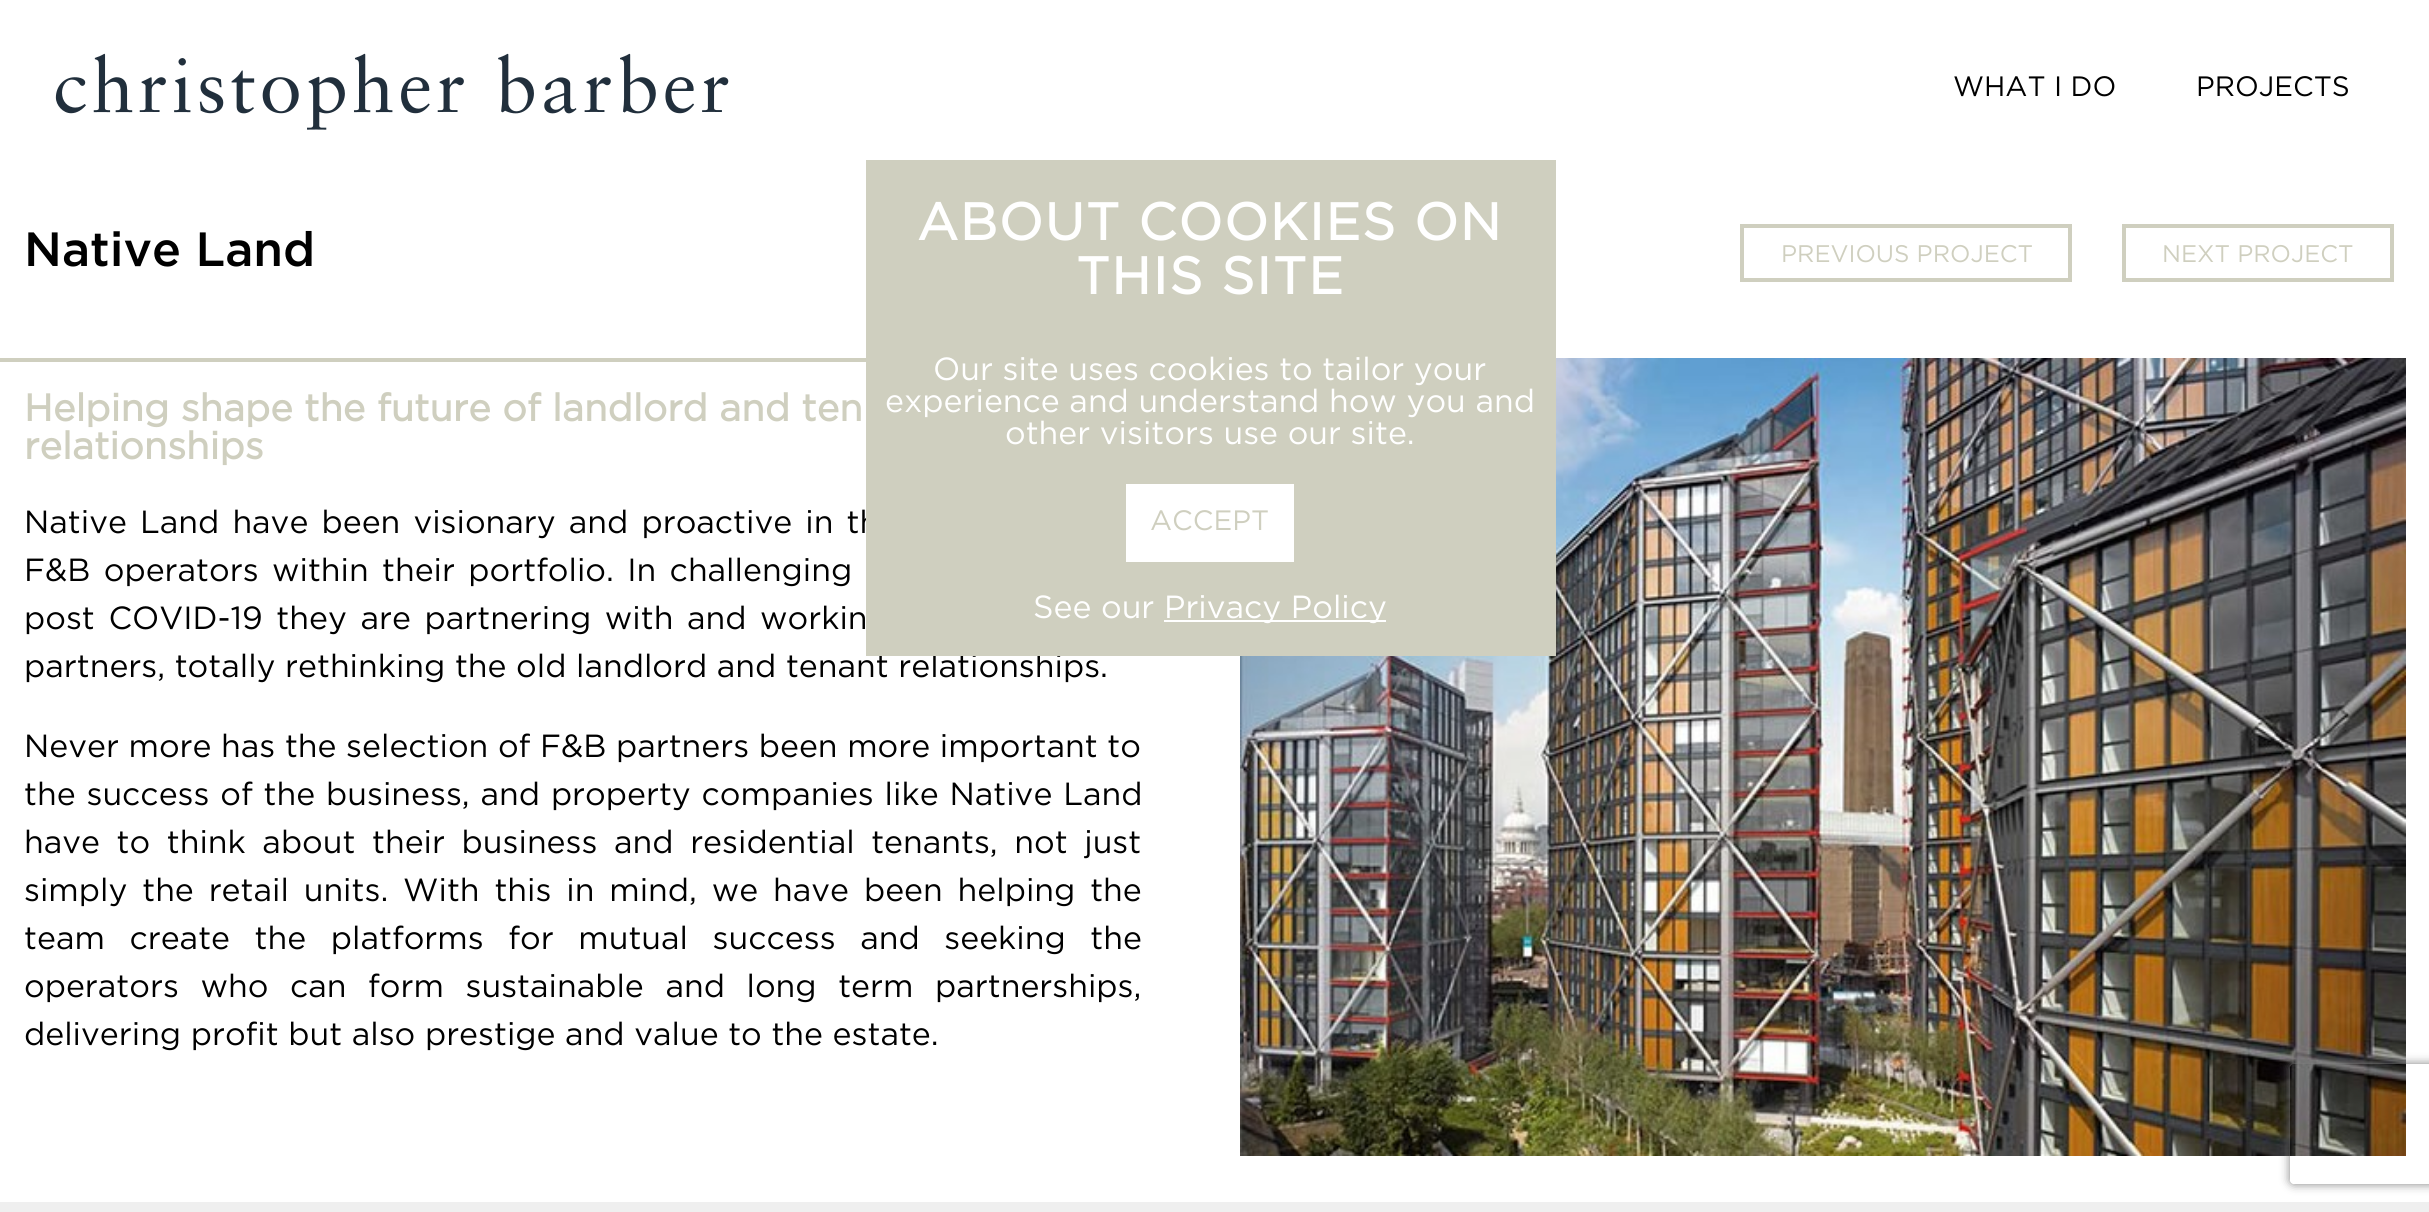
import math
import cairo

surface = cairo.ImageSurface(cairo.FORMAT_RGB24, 2429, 1212)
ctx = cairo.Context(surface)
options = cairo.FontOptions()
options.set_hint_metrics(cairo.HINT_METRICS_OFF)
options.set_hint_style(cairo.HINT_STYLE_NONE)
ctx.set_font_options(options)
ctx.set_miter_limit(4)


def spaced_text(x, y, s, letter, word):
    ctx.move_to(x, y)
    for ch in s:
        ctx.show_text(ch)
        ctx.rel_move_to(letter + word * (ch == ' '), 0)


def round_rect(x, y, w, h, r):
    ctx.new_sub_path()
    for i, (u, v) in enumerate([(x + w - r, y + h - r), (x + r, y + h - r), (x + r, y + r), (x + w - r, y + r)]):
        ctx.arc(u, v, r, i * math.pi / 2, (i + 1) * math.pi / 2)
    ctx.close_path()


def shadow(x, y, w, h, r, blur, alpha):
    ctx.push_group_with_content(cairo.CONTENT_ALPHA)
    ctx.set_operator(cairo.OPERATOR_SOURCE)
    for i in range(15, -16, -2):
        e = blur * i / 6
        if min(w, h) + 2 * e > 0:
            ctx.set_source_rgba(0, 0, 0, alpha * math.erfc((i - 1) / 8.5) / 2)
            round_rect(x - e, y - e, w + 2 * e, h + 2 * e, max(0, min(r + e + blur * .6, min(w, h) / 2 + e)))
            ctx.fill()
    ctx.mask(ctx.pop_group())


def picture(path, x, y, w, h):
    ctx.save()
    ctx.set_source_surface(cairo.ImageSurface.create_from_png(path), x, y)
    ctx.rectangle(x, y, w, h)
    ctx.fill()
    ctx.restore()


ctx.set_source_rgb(1, 1, 1)
ctx.paint()
picture("img1.png", 55, 53, 674, 77)
ctx.select_font_face("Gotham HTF")
ctx.set_font_size(28)
ctx.set_source_rgb(0, 0, 0)
ctx.move_to(1953, 96)
ctx.show_text("WHAT I DO")
ctx.move_to(2196, 96)
ctx.show_text("PROJECTS")
ctx.set_font_size(32)
spaced_text(24, 533, "Native Land have been visionary and proactive in th", 0, 3.5)
ctx.move_to(24, 677)
ctx.show_text("partners, totally rethinking the old landlord and tenant relationships.")
picture("img2.png", 1240, 358, 1166, 798)
ctx.set_source_rgb(0.812, 0.812, 0.749)
ctx.rectangle(866, 160, 690, 496)
ctx.fill()
ctx.select_font_face("Gotham HTF", cairo.FONT_SLANT_NORMAL, cairo.FONT_WEIGHT_BOLD)
ctx.set_font_size(52)
ctx.set_source_rgb(1, 1, 1)
spaced_text(917, 240, "ABOUT COOKIES ON", 1.6, 0)
spaced_text(1076, 294, "THIS SITE", 1.6, 0)
ctx.select_font_face("Gotham HTF")
ctx.set_font_size(32)
ctx.move_to(933, 380)
ctx.show_text("Our site uses cookies to tailor your")
ctx.move_to(885, 412)
ctx.show_text("experience and understand how you and")
ctx.move_to(1005, 444)
ctx.show_text("other visitors use our site.")
ctx.rectangle(1126, 484, 168, 78)
ctx.fill()
ctx.set_font_size(28)
ctx.set_source_rgb(0.812, 0.812, 0.749)
ctx.move_to(1150, 530)
ctx.show_text("ACCEPT")
ctx.set_font_size(32)
ctx.set_source_rgb(1, 1, 1)
ctx.move_to(1033, 618)
ctx.show_text("See our")
ctx.rectangle(1164, 620, 222, 2)
ctx.fill()
ctx.move_to(1164, 618)
ctx.show_text("Privacy Policy")
ctx.select_font_face("Gotham HTF Medium")
ctx.set_font_size(48)
ctx.set_source_rgb(0, 0, 0)
ctx.move_to(24, 266)
ctx.show_text("Native Land")
ctx.rectangle(1742, 226, 328, 54)
ctx.set_source_rgb(0.812, 0.812, 0.749)
ctx.set_line_width(4)
ctx.stroke()
ctx.select_font_face("Gotham HTF")
ctx.set_font_size(24)
ctx.move_to(1781, 262)
ctx.show_text("PREVIOUS PROJECT")
ctx.rectangle(2124, 226, 268, 54)
ctx.stroke()
ctx.move_to(2162, 262)
ctx.show_text("NEXT PROJECT")
ctx.rectangle(0, 358, 866, 4)
ctx.fill()
ctx.select_font_face("Gotham HTF", cairo.FONT_SLANT_NORMAL, cairo.FONT_WEIGHT_BOLD)
ctx.set_font_size(38)
ctx.move_to(24, 421)
ctx.show_text("Helping shape the future of landlord and ten")
ctx.move_to(24, 459)
ctx.show_text("relationships")
ctx.select_font_face("Gotham HTF")
ctx.set_font_size(32)
ctx.set_source_rgb(0, 0, 0)
spaced_text(24, 581, "F&B operators within their portfolio. In challenging", 0, 3.75)
spaced_text(24, 629, "post COVID-19 they are partnering with and workin", 0, 4)
ctx.move_to(24, 757)
ctx.show_text("Never more has the selection of F&B partners been more important to")
spaced_text(24, 805, "the success of the business, and property companies like Native Land", 0, 1.25)
spaced_text(24, 853, "have to think about their business and residential tenants, not just", 0, 7)
spaced_text(24, 901, "simply the retail units. With this in mind, we have been helping the", 0, 5.25)
spaced_text(24, 949, "team create the platforms for mutual success and seeking the", 0, 15)
spaced_text(24, 997, "operators who can form sustainable and long term partnerships,", 0, 12)
ctx.move_to(24, 1045)
ctx.show_text("delivering profit but also prestige and value to the estate.")
ctx.save()
ctx.set_fill_rule(cairo.FILL_RULE_EVEN_ODD)
ctx.new_path()
ctx.move_to(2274, 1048)
ctx.line_to(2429, 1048)
ctx.line_to(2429, 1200)
ctx.line_to(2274, 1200)
ctx.close_path()
ctx.move_to(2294, 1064)
ctx.line_to(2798, 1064)
ctx.curve_to(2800, 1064, 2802, 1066, 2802, 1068)
ctx.line_to(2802, 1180)
ctx.curve_to(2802, 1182, 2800, 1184, 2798, 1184)
ctx.line_to(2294, 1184)
ctx.curve_to(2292, 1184, 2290, 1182, 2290, 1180)
ctx.line_to(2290, 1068)
ctx.curve_to(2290, 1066, 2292, 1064, 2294, 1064)
ctx.close_path()
ctx.clip()
ctx.set_source_rgb(0.502, 0.502, 0.502)
shadow(2290, 1064, 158, 120, 4, 5, 1)
ctx.restore()
ctx.set_source_rgb(0.937, 0.937, 0.937)
ctx.rectangle(0, 1202, 2429, 10)
ctx.fill()
surface.write_to_png("page.png")
